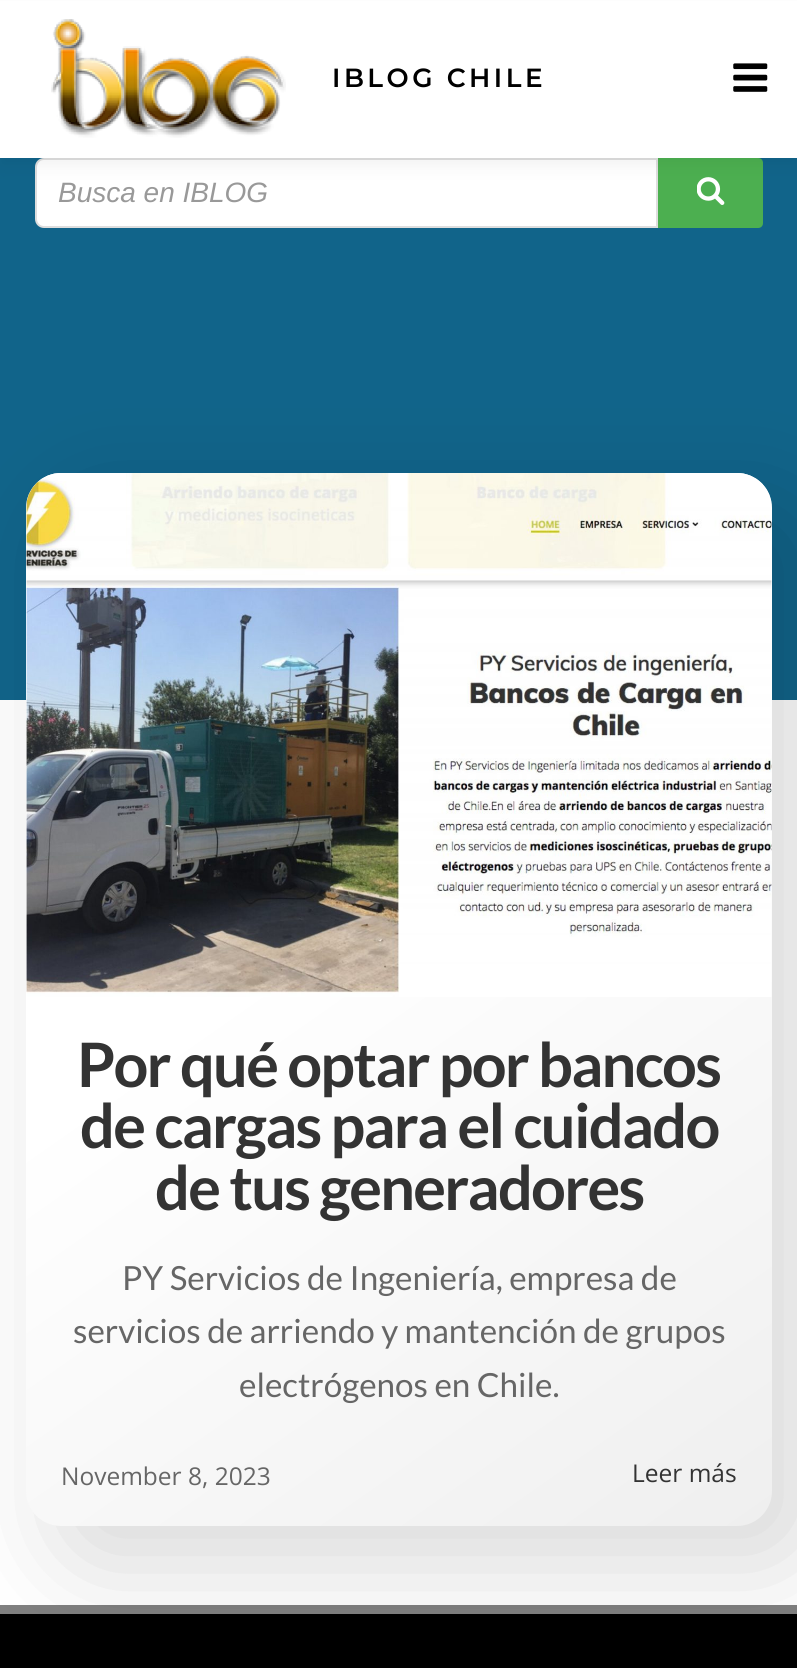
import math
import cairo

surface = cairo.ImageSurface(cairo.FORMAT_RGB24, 797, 1668)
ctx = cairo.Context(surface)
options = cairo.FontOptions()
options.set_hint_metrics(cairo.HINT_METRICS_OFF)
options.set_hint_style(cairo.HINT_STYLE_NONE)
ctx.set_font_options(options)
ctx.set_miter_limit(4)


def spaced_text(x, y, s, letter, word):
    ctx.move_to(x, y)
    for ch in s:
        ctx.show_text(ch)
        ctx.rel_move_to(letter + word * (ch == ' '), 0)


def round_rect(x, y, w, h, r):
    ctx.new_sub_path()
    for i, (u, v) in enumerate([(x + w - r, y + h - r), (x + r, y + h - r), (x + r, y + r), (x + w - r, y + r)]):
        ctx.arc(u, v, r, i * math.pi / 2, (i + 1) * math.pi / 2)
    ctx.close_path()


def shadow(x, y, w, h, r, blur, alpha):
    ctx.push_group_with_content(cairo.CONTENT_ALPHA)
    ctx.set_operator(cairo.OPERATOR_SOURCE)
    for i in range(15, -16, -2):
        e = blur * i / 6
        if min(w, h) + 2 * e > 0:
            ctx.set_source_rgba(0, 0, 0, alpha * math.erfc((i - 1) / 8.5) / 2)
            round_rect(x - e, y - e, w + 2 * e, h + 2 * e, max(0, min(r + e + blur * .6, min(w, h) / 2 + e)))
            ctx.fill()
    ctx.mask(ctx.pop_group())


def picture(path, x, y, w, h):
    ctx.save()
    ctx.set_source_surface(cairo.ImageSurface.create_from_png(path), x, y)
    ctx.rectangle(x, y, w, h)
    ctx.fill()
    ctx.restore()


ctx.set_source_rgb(1, 1, 1)
ctx.paint()
ctx.set_source_rgb(0.067, 0.392, 0.541)
ctx.rectangle(0, 158, 797, 542)
ctx.fill()
ctx.set_source_rgb(1, 1, 1)
ctx.new_path()
ctx.move_to(44, 159)
ctx.line_to(657, 159)
ctx.line_to(657, 227)
ctx.line_to(44, 227)
ctx.curve_to(39.5, 227, 36, 223.5, 36, 219)
ctx.line_to(36, 167)
ctx.curve_to(36, 162.5, 39.5, 159, 44, 159)
ctx.close_path()
ctx.fill_preserve()
ctx.set_source_rgb(0.871, 0.871, 0.871)
ctx.stroke()
ctx.set_source_rgb(0.298, 0.686, 0.314)
ctx.new_path()
ctx.move_to(658, 158)
ctx.line_to(758, 158)
ctx.curve_to(761, 158, 763, 160, 763, 163)
ctx.line_to(763, 223)
ctx.curve_to(763, 226, 761, 228, 758, 228)
ctx.line_to(658, 228)
ctx.close_path()
ctx.fill()
picture("img3.png", 697, 177, 28, 28)
ctx.set_source_rgb(0, 0, 0)
shadow(0, 9, 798, 157, 0, 9, 0.05)
ctx.set_source_rgb(1, 1, 1)
ctx.rectangle(0, 1, 797, 157)
ctx.fill()
picture("img1.png", 51, 19, 235, 119)
ctx.select_font_face("Montserrat SemiBold")
ctx.set_font_size(26.25)
ctx.set_source_rgb(0, 0, 0)
spaced_text(332, 87, "IBLOG CHILE", 3.5, 0)
picture("img2.png", 733, 63, 35, 29)
ctx.select_font_face("Liberation Sans", cairo.FONT_SLANT_ITALIC)
ctx.set_font_size(28)
ctx.set_source_rgb(0.6, 0.6, 0.6)
ctx.move_to(58, 202)
ctx.show_text("Busca en IBLOG")
ctx.set_source_rgb(0, 0, 0)
ctx.rectangle(0, 1614, 797, 54)
ctx.fill()
ctx.set_source_rgb(0.502, 0.502, 0.502)
ctx.rectangle(0, 1605, 797, 9)
ctx.fill()
ctx.set_source_rgb(0, 0, 0)
shadow(58, 504, 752, 1061, 39, 52.5, 0.15)
gradient = cairo.LinearGradient(29, 471, 769, 1528)
gradient.add_color_stop_rgba(0.42, 1, 1, 1, 1)
gradient.add_color_stop_rgba(1, 0.937, 0.937, 0.937, 1)
ctx.set_source(gradient)
round_rect(26, 473, 746, 1053, 35)
ctx.fill()
picture("img4.png", 26, 473, 746, 524)
ctx.select_font_face("Lato", cairo.FONT_SLANT_NORMAL, cairo.FONT_WEIGHT_BOLD)
ctx.set_font_size(61.25)
ctx.set_source_rgb(0.2, 0.2, 0.2)
spaced_text(77, 1087, "Por qué optar por bancos", -1.75, 0)
spaced_text(80, 1148, "de cargas para el cuidado", -1.75, 0)
spaced_text(155, 1210, "de tus generadores", -1.75, 0)
ctx.select_font_face("Lato")
ctx.set_font_size(33.25)
ctx.set_source_rgb(0.4, 0.4, 0.4)
ctx.move_to(122, 1290)
ctx.show_text("PY Servicios de Ingeniería, empresa de")
ctx.move_to(73, 1343)
ctx.show_text("servicios de arriendo y mantención de grupos")
ctx.move_to(239, 1397)
ctx.show_text("electrógenos en Chile.")
ctx.select_font_face("Open Sans")
ctx.set_font_size(24.5)
ctx.move_to(61, 1485)
ctx.show_text("November 8, 2023")
ctx.set_source_rgb(0.2, 0.2, 0.2)
ctx.move_to(632, 1482)
ctx.show_text("Leer más")
surface.write_to_png("page.png")
